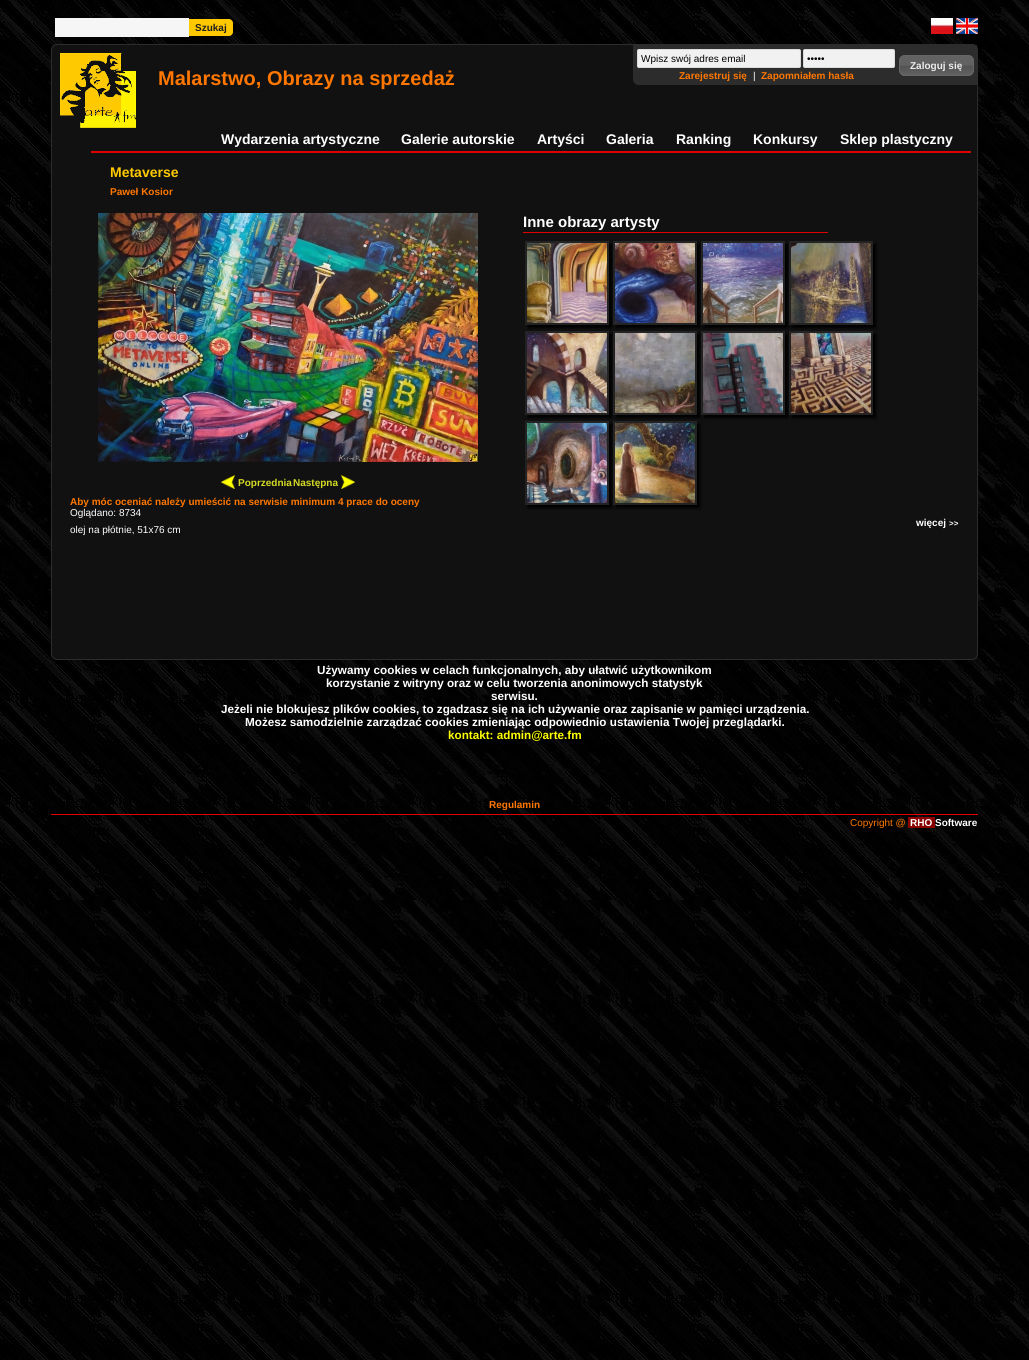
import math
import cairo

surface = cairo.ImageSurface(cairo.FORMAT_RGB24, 1029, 1360)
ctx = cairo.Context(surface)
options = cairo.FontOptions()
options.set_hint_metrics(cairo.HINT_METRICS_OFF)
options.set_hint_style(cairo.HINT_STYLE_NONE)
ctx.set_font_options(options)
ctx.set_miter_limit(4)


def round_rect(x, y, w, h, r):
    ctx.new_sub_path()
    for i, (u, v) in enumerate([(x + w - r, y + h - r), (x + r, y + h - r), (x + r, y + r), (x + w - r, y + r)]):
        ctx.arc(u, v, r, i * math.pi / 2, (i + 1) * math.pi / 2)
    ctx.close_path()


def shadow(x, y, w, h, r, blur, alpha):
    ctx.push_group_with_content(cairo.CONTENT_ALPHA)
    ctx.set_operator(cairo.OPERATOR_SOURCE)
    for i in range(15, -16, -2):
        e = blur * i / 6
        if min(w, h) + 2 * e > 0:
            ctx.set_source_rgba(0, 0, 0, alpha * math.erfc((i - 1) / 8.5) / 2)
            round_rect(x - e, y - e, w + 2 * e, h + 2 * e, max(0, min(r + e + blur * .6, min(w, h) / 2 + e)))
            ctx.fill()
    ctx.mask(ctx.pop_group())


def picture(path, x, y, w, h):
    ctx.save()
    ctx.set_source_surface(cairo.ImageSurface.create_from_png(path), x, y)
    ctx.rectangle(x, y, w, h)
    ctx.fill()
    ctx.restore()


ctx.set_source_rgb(1, 1, 1)
ctx.paint()
picture("img1.png", 0, 0, 1029, 1360)
ctx.set_source_rgb(0.961, 0.961, 0.961)
ctx.rectangle(55, 18, 134, 19)
ctx.fill()
ctx.set_source_rgb(0.996, 0.788, 0)
ctx.new_path()
ctx.move_to(189, 19)
ctx.line_to(229, 19)
ctx.curve_to(231, 19, 233, 21, 233, 23)
ctx.line_to(233, 32)
ctx.curve_to(233, 34, 231, 36, 229, 36)
ctx.line_to(189, 36)
ctx.close_path()
ctx.fill()
ctx.select_font_face("Liberation Sans", cairo.FONT_SLANT_NORMAL, cairo.FONT_WEIGHT_BOLD)
ctx.set_font_size(10)
ctx.set_source_rgb(0.122, 0.122, 0.122)
ctx.move_to(195, 31)
ctx.show_text("Szukaj")
picture("img2.png", 931, 18, 22, 16)
picture("img3.png", 956, 18, 22, 16)
ctx.set_source_rgb(0.067, 0.067, 0.067)
round_rect(51.5, 44.5, 926, 615, 5.5)
ctx.fill_preserve()
ctx.set_source_rgb(0.173, 0.173, 0.173)
ctx.set_line_width(1)
ctx.stroke()
picture("img4.png", 60, 53, 76, 75)
ctx.set_font_size(20)
ctx.set_source_rgb(1, 0.467, 0)
ctx.move_to(158, 85)
ctx.show_text("Malarstwo, Obrazy na sprzedaż")
ctx.set_source_rgb(0.173, 0.173, 0.173)
ctx.new_path()
ctx.move_to(633, 45)
ctx.line_to(977, 45)
ctx.line_to(977, 85)
ctx.line_to(639, 85)
ctx.curve_to(635.5, 85, 633, 82.5, 633, 79)
ctx.close_path()
ctx.fill()
ctx.set_source_rgb(0.945, 0.945, 0.945)
round_rect(637.5, 49.5, 163, 18, 1.5)
ctx.fill_preserve()
ctx.set_source_rgb(0.863, 0.863, 0.863)
ctx.stroke()
ctx.select_font_face("Liberation Sans")
ctx.set_font_size(10)
ctx.set_source_rgb(0, 0, 0)
ctx.move_to(641, 62)
ctx.show_text("Wpisz swój adres email")
ctx.set_source_rgb(0.945, 0.945, 0.945)
round_rect(803.5, 49.5, 91, 18, 1.5)
ctx.fill_preserve()
ctx.set_source_rgb(0.863, 0.863, 0.863)
ctx.stroke()
ctx.set_source_rgb(0, 0, 0)
ctx.move_to(807, 62)
ctx.show_text("•••••")
ctx.select_font_face("Liberation Sans", cairo.FONT_SLANT_NORMAL, cairo.FONT_WEIGHT_BOLD)
ctx.set_source_rgb(1, 0.467, 0)
ctx.move_to(679, 79)
ctx.show_text("Zarejestruj się")
ctx.select_font_face("Liberation Sans")
ctx.set_source_rgb(1, 1, 1)
ctx.move_to(753, 79)
ctx.show_text("|")
ctx.select_font_face("Liberation Sans", cairo.FONT_SLANT_NORMAL, cairo.FONT_WEIGHT_BOLD)
ctx.set_source_rgb(1, 0.467, 0)
ctx.move_to(761, 79)
ctx.show_text("Zapomniałem hasła")
picture("img5.png", 899, 55, 75, 21)
round_rect(899.5, 55.5, 74, 20, 5.5)
ctx.set_source_rgb(0.4, 0.4, 0.4)
ctx.stroke()
ctx.set_source_rgb(0.933, 0.933, 0.933)
ctx.move_to(910, 69)
ctx.show_text("Zaloguj się")
ctx.set_source_rgb(0.875, 0, 0)
ctx.rectangle(91, 151, 880, 2)
ctx.fill()
ctx.set_font_size(14)
ctx.set_source_rgb(1, 1, 1)
ctx.move_to(221, 144)
ctx.show_text("Wydarzenia artystyczne")
ctx.move_to(401, 144)
ctx.show_text("Galerie autorskie")
ctx.move_to(537, 144)
ctx.show_text("Artyści")
ctx.move_to(606, 144)
ctx.show_text("Galeria")
ctx.move_to(676, 144)
ctx.show_text("Ranking")
ctx.move_to(753, 144)
ctx.show_text("Konkursy")
ctx.move_to(840, 144)
ctx.show_text("Sklep plastyczny")
ctx.set_source_rgb(0.996, 0.788, 0)
ctx.move_to(110, 177)
ctx.show_text("Metaverse")
ctx.set_font_size(10)
ctx.set_source_rgb(1, 0.467, 0)
ctx.move_to(110, 195)
ctx.show_text("Paweł Kosior")
picture("img6.png", 98, 213, 380, 249)
picture("img7.png", 221, 475, 14, 14)
ctx.set_source_rgb(0.835, 0.859, 0.145)
ctx.move_to(238, 486)
ctx.show_text("Poprzednia")
ctx.move_to(293, 486)
ctx.show_text("Następna")
picture("img8.png", 341, 475, 14, 14)
ctx.set_source_rgb(1, 0.467, 0)
ctx.move_to(70, 505)
ctx.show_text("Aby móc oceniać należy umieścić na serwisie minimum 4 prace do oceny")
ctx.select_font_face("Liberation Sans")
ctx.set_source_rgb(1, 1, 1)
ctx.move_to(70, 516)
ctx.show_text("Oglądano: 8734")
ctx.move_to(70, 533)
ctx.show_text("olej na płótnie, 51x76 cm")
ctx.set_source_rgb(0.875, 0, 0)
ctx.rectangle(523, 232, 305, 1)
ctx.fill()
ctx.select_font_face("Liberation Sans", cairo.FONT_SLANT_NORMAL, cairo.FONT_WEIGHT_BOLD)
ctx.set_font_size(15)
ctx.set_source_rgb(1, 1, 1)
ctx.move_to(523, 227)
ctx.show_text("Inne obrazy artysty")
ctx.set_source_rgb(0, 0, 0)
shadow(528, 244, 84, 84, 0, 1.5, 1)
ctx.rectangle(526, 242, 82, 82)
ctx.set_source_rgb(0.137, 0.137, 0.137)
ctx.set_line_width(2)
ctx.stroke()
picture("img9.png", 527, 243, 80, 80)
ctx.set_source_rgb(0, 0, 0)
shadow(616, 244, 84, 84, 0, 1.5, 1)
ctx.rectangle(614, 242, 82, 82)
ctx.set_source_rgb(0.137, 0.137, 0.137)
ctx.stroke()
picture("img10.png", 615, 243, 80, 80)
ctx.set_source_rgb(0, 0, 0)
shadow(704, 244, 84, 84, 0, 1.5, 1)
ctx.rectangle(702, 242, 82, 82)
ctx.set_source_rgb(0.137, 0.137, 0.137)
ctx.stroke()
picture("img11.png", 703, 243, 80, 80)
ctx.set_source_rgb(0, 0, 0)
shadow(792, 244, 84, 84, 0, 1.5, 1)
ctx.rectangle(790, 242, 82, 82)
ctx.set_source_rgb(0.137, 0.137, 0.137)
ctx.stroke()
picture("img12.png", 791, 243, 80, 80)
ctx.set_source_rgb(0, 0, 0)
shadow(528, 334, 84, 84, 0, 1.5, 1)
ctx.rectangle(526, 332, 82, 82)
ctx.set_source_rgb(0.137, 0.137, 0.137)
ctx.stroke()
picture("img13.png", 527, 333, 80, 80)
ctx.set_source_rgb(0, 0, 0)
shadow(616, 334, 84, 84, 0, 1.5, 1)
ctx.rectangle(614, 332, 82, 82)
ctx.set_source_rgb(0.137, 0.137, 0.137)
ctx.stroke()
picture("img14.png", 615, 333, 80, 80)
ctx.set_source_rgb(0, 0, 0)
shadow(704, 334, 84, 84, 0, 1.5, 1)
ctx.rectangle(702, 332, 82, 82)
ctx.set_source_rgb(0.137, 0.137, 0.137)
ctx.stroke()
picture("img15.png", 703, 333, 80, 80)
ctx.set_source_rgb(0, 0, 0)
shadow(792, 334, 84, 84, 0, 1.5, 1)
ctx.rectangle(790, 332, 82, 82)
ctx.set_source_rgb(0.137, 0.137, 0.137)
ctx.stroke()
picture("img16.png", 791, 333, 80, 80)
ctx.set_source_rgb(0, 0, 0)
shadow(528, 424, 84, 84, 0, 1.5, 1)
ctx.rectangle(526, 422, 82, 82)
ctx.set_source_rgb(0.137, 0.137, 0.137)
ctx.stroke()
picture("img17.png", 527, 423, 80, 80)
ctx.set_source_rgb(0, 0, 0)
shadow(616, 424, 84, 84, 0, 1.5, 1)
ctx.rectangle(614, 422, 82, 82)
ctx.set_source_rgb(0.137, 0.137, 0.137)
ctx.stroke()
picture("img18.png", 615, 423, 80, 80)
ctx.set_font_size(10)
ctx.set_source_rgb(1, 1, 1)
ctx.move_to(916, 526)
ctx.show_text("więcej")
ctx.set_font_size(8)
ctx.move_to(949, 526)
ctx.show_text(">>")
ctx.set_font_size(11.7)
ctx.move_to(317, 674)
ctx.show_text("Używamy cookies w celach funkcjonalnych, aby ułatwić użytkownikom")
ctx.move_to(326, 687)
ctx.show_text("korzystanie z witryny oraz w celu tworzenia anonimowych statystyk")
ctx.move_to(491, 700)
ctx.show_text("serwisu.")
ctx.move_to(221, 713)
ctx.show_text("Jeżeli nie blokujesz plików cookies, to zgadzasz się na ich używanie oraz zapisanie w pamięci urządzenia.")
ctx.move_to(245, 726)
ctx.show_text("Możesz samodzielnie zarządzać cookies zmieniając odpowiednio ustawienia Twojej przeglądarki.")
ctx.set_source_rgb(1, 1, 0)
ctx.move_to(448, 739)
ctx.show_text("kontakt: admin@arte.fm")
ctx.set_font_size(10)
ctx.set_source_rgb(1, 0.467, 0)
ctx.move_to(489, 808)
ctx.show_text("Regulamin")
ctx.set_source_rgb(0.875, 0, 0)
ctx.rectangle(51, 814, 927, 1)
ctx.fill()
ctx.select_font_face("Liberation Sans")
ctx.set_source_rgb(1, 0.467, 0)
ctx.move_to(850, 826)
ctx.show_text("Copyright @")
ctx.set_source_rgb(0.533, 0, 0)
ctx.rectangle(908, 817, 27, 11)
ctx.fill()
ctx.select_font_face("Liberation Sans", cairo.FONT_SLANT_NORMAL, cairo.FONT_WEIGHT_BOLD)
ctx.set_source_rgb(1, 1, 1)
ctx.move_to(910, 826)
ctx.show_text("RHO Software")
surface.write_to_png("page.png")
